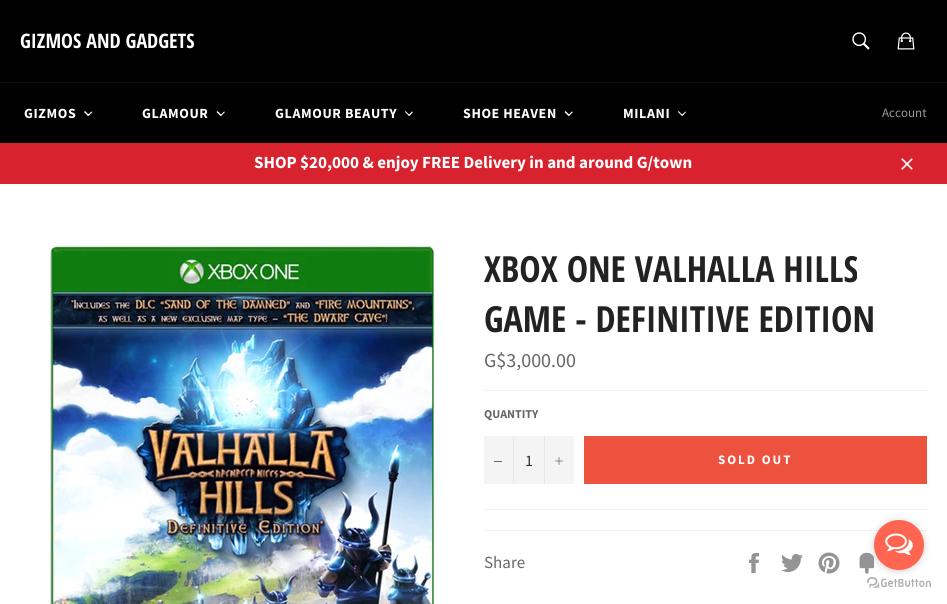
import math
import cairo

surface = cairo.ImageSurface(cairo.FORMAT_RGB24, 947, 604)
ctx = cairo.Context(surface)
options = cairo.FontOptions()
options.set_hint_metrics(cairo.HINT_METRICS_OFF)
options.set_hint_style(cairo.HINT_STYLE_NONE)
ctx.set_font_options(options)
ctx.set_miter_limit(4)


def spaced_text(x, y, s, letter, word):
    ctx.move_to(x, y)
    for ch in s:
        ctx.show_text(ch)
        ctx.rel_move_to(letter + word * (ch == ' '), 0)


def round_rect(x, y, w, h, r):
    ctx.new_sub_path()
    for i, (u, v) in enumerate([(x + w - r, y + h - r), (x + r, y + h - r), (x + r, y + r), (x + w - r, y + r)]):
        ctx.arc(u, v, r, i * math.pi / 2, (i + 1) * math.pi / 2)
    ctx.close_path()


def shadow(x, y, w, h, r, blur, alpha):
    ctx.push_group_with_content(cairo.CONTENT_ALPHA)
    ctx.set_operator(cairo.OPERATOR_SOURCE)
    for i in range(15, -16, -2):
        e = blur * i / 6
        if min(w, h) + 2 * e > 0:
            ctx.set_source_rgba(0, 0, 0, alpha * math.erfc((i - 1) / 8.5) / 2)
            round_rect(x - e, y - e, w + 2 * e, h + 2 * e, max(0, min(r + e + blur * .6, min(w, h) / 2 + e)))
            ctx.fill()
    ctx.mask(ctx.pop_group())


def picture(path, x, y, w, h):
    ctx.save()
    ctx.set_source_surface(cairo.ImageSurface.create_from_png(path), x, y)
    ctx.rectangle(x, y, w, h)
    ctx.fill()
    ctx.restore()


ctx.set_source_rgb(1, 1, 1)
ctx.paint()
ctx.set_source_rgb(0, 0, 0)
ctx.rectangle(0, 0, 947, 82)
ctx.fill()
ctx.select_font_face("Open Sans Condensed", cairo.FONT_SLANT_NORMAL, cairo.FONT_WEIGHT_BOLD)
ctx.set_font_size(20)
ctx.set_source_rgb(1, 1, 1)
ctx.move_to(20, 48)
ctx.show_text("GIZMOS AND GADGETS")
picture("img1.png", 852, 32, 18, 18)
picture("img2.png", 897, 32, 18, 18)
ctx.set_source_rgb(0, 0, 0)
ctx.rectangle(0, 83, 947, 60)
ctx.fill()
ctx.set_source_rgb(0.051, 0.051, 0.051)
ctx.rectangle(0, 82, 947, 1)
ctx.fill()
ctx.select_font_face("Source Sans Pro", cairo.FONT_SLANT_NORMAL, cairo.FONT_WEIGHT_BOLD)
ctx.set_font_size(14)
ctx.set_source_rgb(1, 1, 1)
spaced_text(24, 118, "GIZMOS", 0.6, 0)
ctx.new_path()
ctx.move_to(91.5, 111.5)
ctx.line_to(92.5, 112)
ctx.line_to(88.5, 116)
ctx.line_to(87.5, 115)
ctx.close_path()
ctx.fill()
ctx.new_path()
ctx.move_to(85, 111)
ctx.line_to(89, 115)
ctx.line_to(88, 116)
ctx.line_to(84, 112)
ctx.close_path()
ctx.fill()
spaced_text(142, 118, "GLAMOUR", 0.6, 0)
ctx.new_path()
ctx.move_to(224, 111.5)
ctx.line_to(225, 112)
ctx.line_to(221, 116)
ctx.line_to(220.5, 115)
ctx.close_path()
ctx.fill()
ctx.new_path()
ctx.move_to(217.5, 111)
ctx.line_to(221.5, 115)
ctx.line_to(220.5, 116)
ctx.line_to(216.5, 112)
ctx.close_path()
ctx.fill()
spaced_text(275, 118, "GLAMOUR BEAUTY", 0.6, 0)
ctx.new_path()
ctx.move_to(412, 111.5)
ctx.line_to(413, 112)
ctx.line_to(409.5, 116)
ctx.line_to(408.5, 115)
ctx.close_path()
ctx.fill()
ctx.new_path()
ctx.move_to(405.5, 111)
ctx.line_to(409.5, 115)
ctx.line_to(409, 116)
ctx.line_to(405, 112)
ctx.close_path()
ctx.fill()
spaced_text(463, 118, "SHOE HEAVEN", 0.6, 0)
ctx.new_path()
ctx.move_to(572, 111.5)
ctx.line_to(573, 112)
ctx.line_to(569, 116)
ctx.line_to(568, 115)
ctx.close_path()
ctx.fill()
ctx.new_path()
ctx.move_to(565.5, 111)
ctx.line_to(569.5, 115)
ctx.line_to(568.5, 116)
ctx.line_to(564.5, 112)
ctx.close_path()
ctx.fill()
spaced_text(623, 118, "MILANI", 0.6, 0)
ctx.new_path()
ctx.move_to(685.5, 111.5)
ctx.line_to(686, 112)
ctx.line_to(682.5, 116)
ctx.line_to(681.5, 115)
ctx.close_path()
ctx.fill()
ctx.new_path()
ctx.move_to(678.5, 111)
ctx.line_to(682.5, 115)
ctx.line_to(682, 116)
ctx.line_to(678, 112)
ctx.close_path()
ctx.fill()
ctx.select_font_face("Source Sans Pro")
ctx.set_font_size(13)
ctx.set_source_rgb(0.6, 0.6, 0.6)
ctx.move_to(882, 117)
ctx.show_text("Account")
ctx.set_source_rgb(0.847, 0.137, 0.184)
ctx.rectangle(0, 143, 947, 41)
ctx.fill()
ctx.select_font_face("Source Sans Pro", cairo.FONT_SLANT_NORMAL, cairo.FONT_WEIGHT_BOLD)
ctx.set_font_size(17)
ctx.set_source_rgb(1, 1, 1)
ctx.move_to(254, 168)
ctx.show_text("SHOP $20,000 & enjoy FREE Delivery in and around G/town")
picture("img3.png", 901, 158, 12, 12)
picture("img4.png", 50, 244, 384, 360)
ctx.select_font_face("Open Sans Condensed", cairo.FONT_SLANT_NORMAL, cairo.FONT_WEIGHT_BOLD)
ctx.set_font_size(36)
ctx.set_source_rgb(0.133, 0.133, 0.133)
ctx.move_to(484, 282)
ctx.show_text("XBOX ONE VALHALLA HILLS")
ctx.move_to(484, 332)
ctx.show_text("GAME - DEFINITIVE EDITION")
ctx.select_font_face("Source Sans Pro")
ctx.set_font_size(20)
ctx.set_source_rgb(0.4, 0.4, 0.4)
ctx.move_to(484, 367)
ctx.show_text("G$3,000.00")
ctx.set_source_rgb(0.941, 0.941, 0.941)
ctx.rectangle(484, 390, 443, 1)
ctx.fill()
ctx.select_font_face("Source Sans Pro", cairo.FONT_SLANT_NORMAL, cairo.FONT_WEIGHT_BOLD)
ctx.set_font_size(12)
ctx.set_source_rgb(0.4, 0.4, 0.4)
ctx.move_to(484, 418)
ctx.show_text("QUANTITY")
ctx.set_source_rgb(0.957, 0.957, 0.957)
ctx.rectangle(484, 436, 90, 48)
ctx.fill()
ctx.set_source_rgb(0.906, 0.906, 0.906)
ctx.rectangle(513, 436, 1, 48)
ctx.fill()
ctx.set_source_rgb(0.4, 0.4, 0.4)
ctx.rectangle(494, 461, 8, 1)
ctx.fill()
ctx.select_font_face("Source Sans Pro")
ctx.set_font_size(16)
ctx.set_source_rgb(0.2, 0.2, 0.2)
ctx.move_to(525, 466)
ctx.show_text("1")
ctx.set_source_rgb(0.906, 0.906, 0.906)
ctx.rectangle(544, 436, 1, 48)
ctx.fill()
picture("img5.png", 555, 457, 8, 8)
ctx.set_source_rgb(0.925, 0.322, 0.243)
ctx.rectangle(584, 436, 343, 48)
ctx.fill()
ctx.select_font_face("Source Sans Pro", cairo.FONT_SLANT_NORMAL, cairo.FONT_WEIGHT_BOLD)
ctx.set_font_size(13)
ctx.set_source_rgb(1, 1, 1)
spaced_text(718, 464, "SOLD OUT", 2, 0)
ctx.set_source_rgb(0.941, 0.941, 0.941)
ctx.rectangle(484, 509, 443, 1)
ctx.fill()
ctx.rectangle(484, 530, 443, 1)
ctx.fill()
ctx.select_font_face("Source Sans Pro")
ctx.set_font_size(17)
ctx.set_source_rgb(0.4, 0.4, 0.4)
ctx.move_to(484, 568)
ctx.show_text("Share")
picture("img6.png", 749, 553, 10, 20)
picture("img7.png", 781, 554, 22, 18)
picture("img8.png", 818, 552, 22, 22)
picture("img9.png", 859, 552, 16, 22)
picture("img10.png", 899, 569, 3, 1)
picture("img12.png", 867, 577, 64, 11)
ctx.set_source_rgb(0.533, 0.533, 0.533)
shadow(874, 521, 50, 50, 25, 3.5, 0.4)
ctx.set_source_rgb(1, 0.396, 0.314)
ctx.arc(899, 545, 25, 0, 2 * math.pi)
ctx.fill()
picture("img11.png", 885, 533, 28, 23)
surface.write_to_png("page.png")
